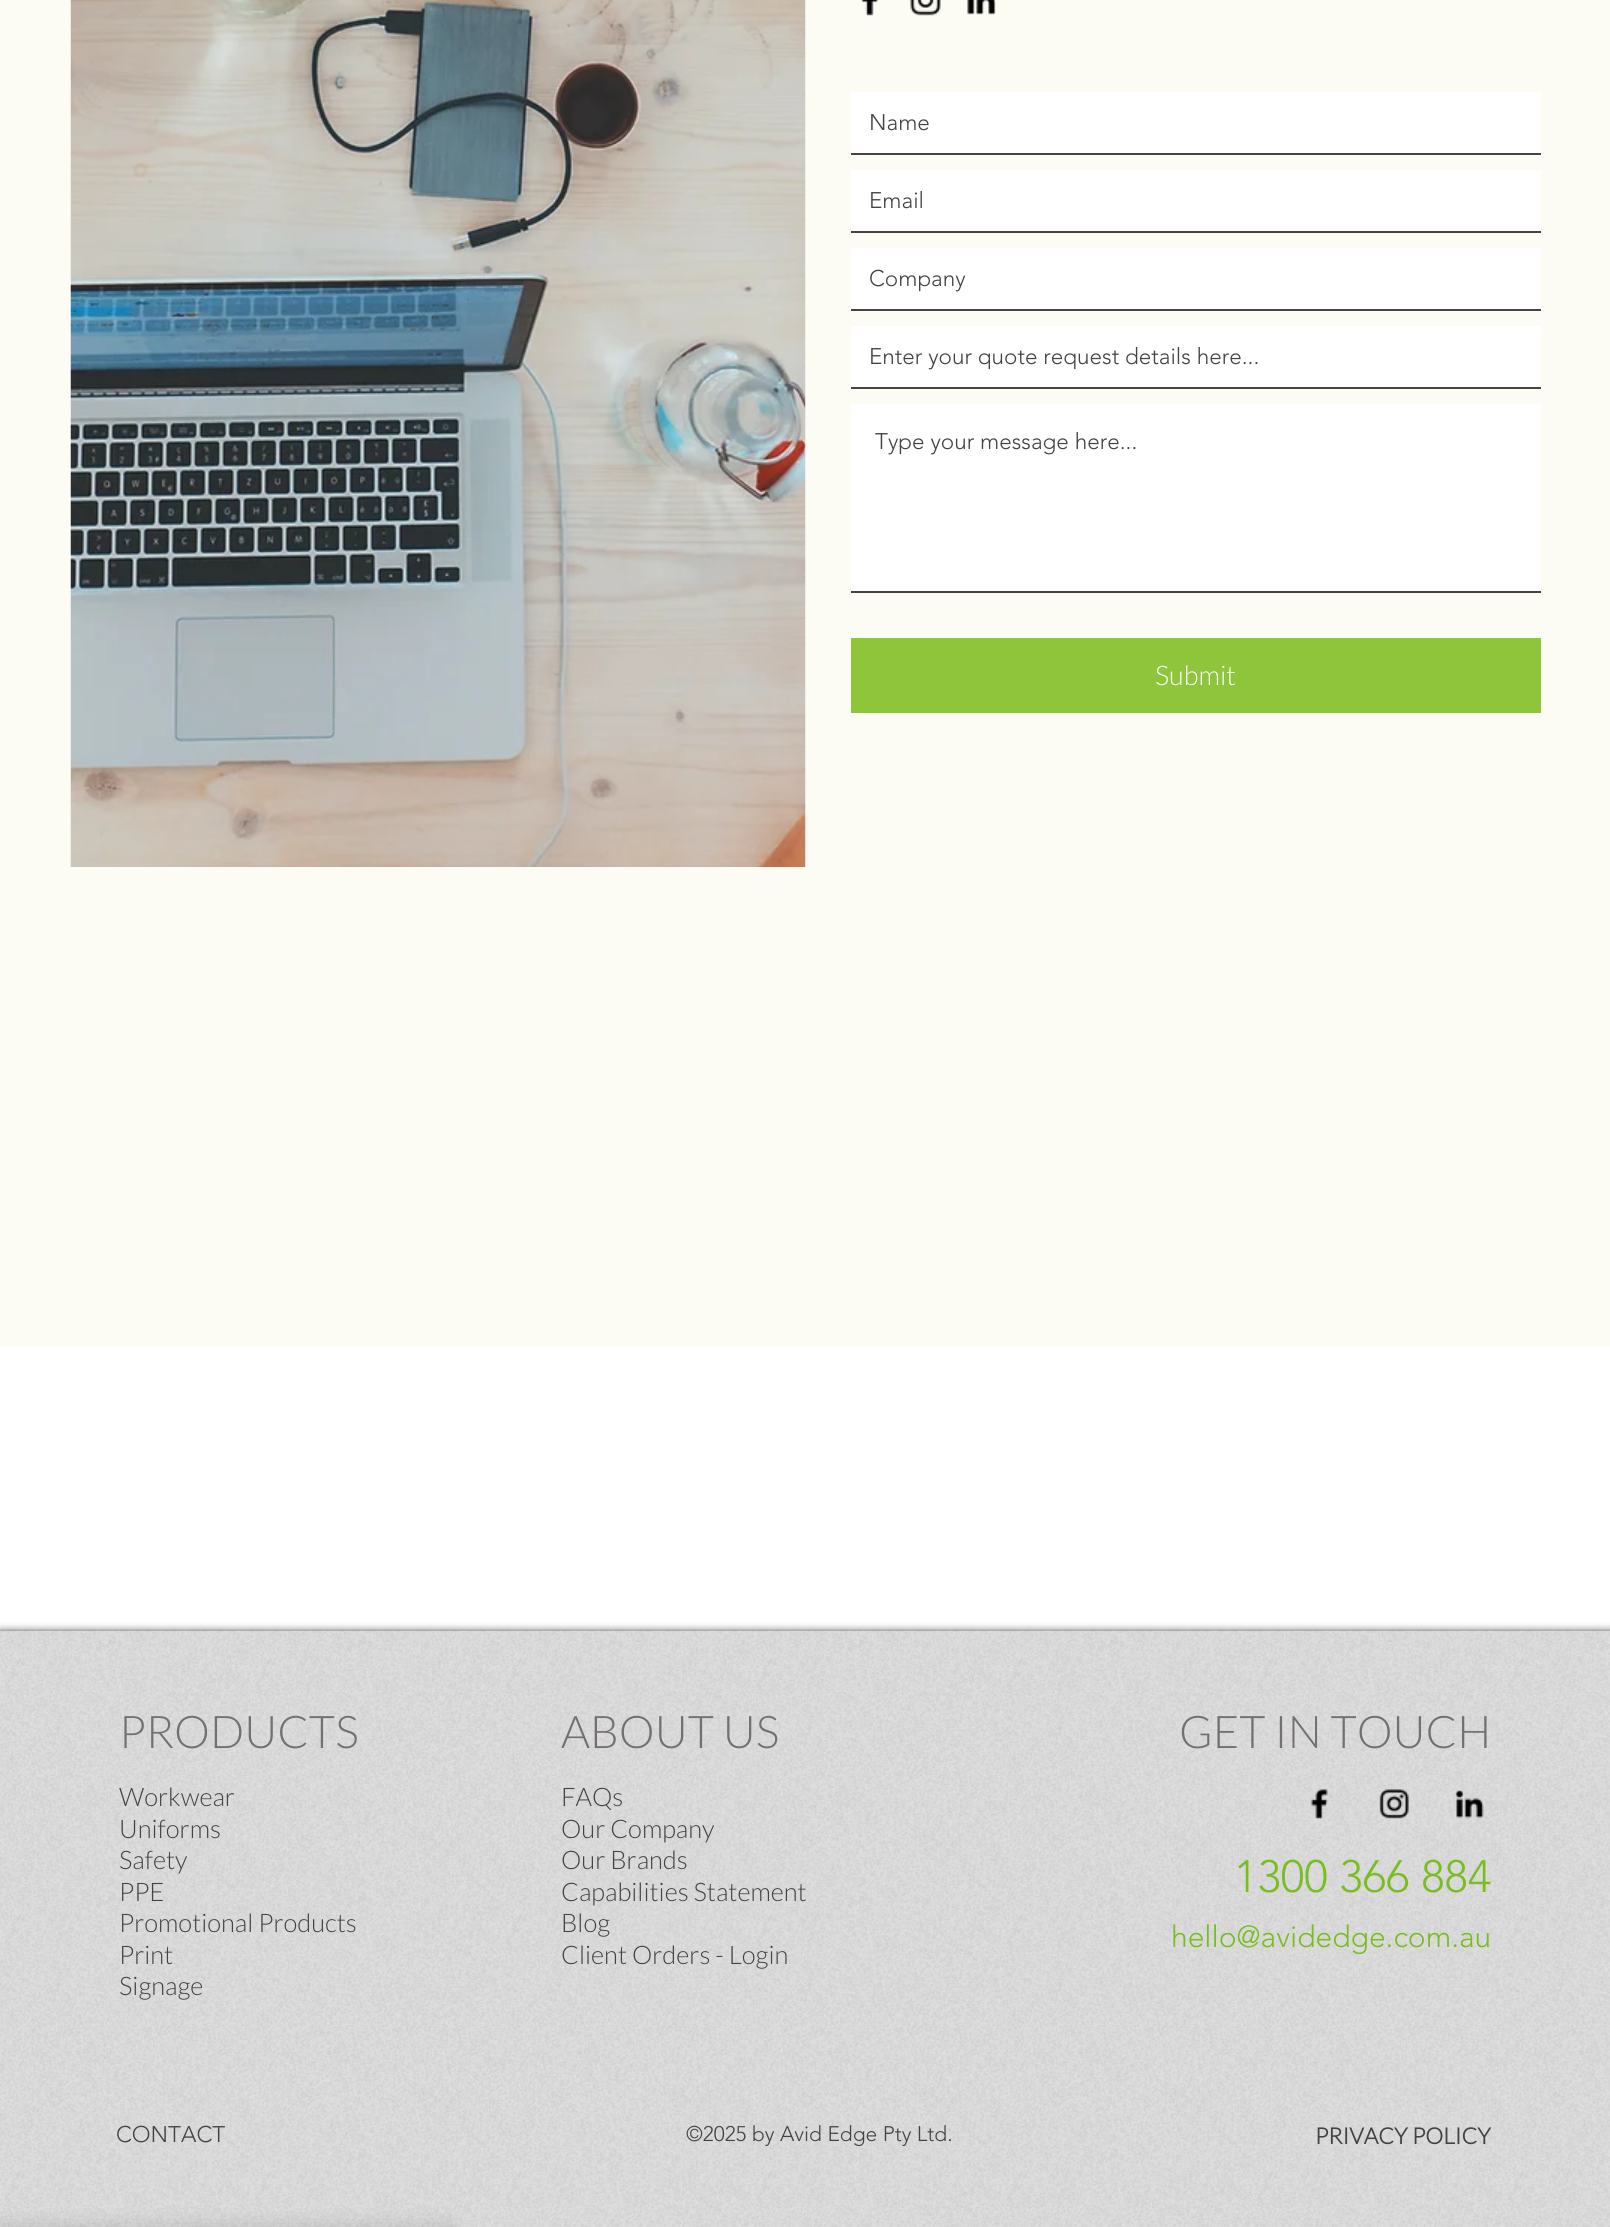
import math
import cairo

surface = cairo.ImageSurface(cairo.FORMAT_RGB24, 1610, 2227)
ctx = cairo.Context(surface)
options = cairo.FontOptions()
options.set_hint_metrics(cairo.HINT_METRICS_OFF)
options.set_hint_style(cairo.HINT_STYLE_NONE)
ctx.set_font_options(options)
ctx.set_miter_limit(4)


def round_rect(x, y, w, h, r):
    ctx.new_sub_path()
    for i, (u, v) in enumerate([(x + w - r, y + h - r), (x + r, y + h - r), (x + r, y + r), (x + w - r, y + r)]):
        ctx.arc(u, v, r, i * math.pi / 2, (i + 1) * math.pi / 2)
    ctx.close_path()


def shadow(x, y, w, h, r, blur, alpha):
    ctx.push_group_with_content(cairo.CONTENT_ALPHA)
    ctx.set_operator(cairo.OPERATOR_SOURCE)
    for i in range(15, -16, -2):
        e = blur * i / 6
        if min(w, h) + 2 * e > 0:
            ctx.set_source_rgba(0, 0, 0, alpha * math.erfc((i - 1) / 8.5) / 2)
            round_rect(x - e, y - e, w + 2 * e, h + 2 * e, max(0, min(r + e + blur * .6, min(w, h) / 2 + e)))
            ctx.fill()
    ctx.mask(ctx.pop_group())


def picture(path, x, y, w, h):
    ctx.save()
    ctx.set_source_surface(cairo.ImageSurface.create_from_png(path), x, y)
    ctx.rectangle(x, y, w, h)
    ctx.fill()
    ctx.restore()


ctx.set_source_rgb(1, 1, 1)
ctx.paint()
ctx.set_source_rgb(0.988, 0.988, 0.957)
ctx.rectangle(0, 0, 1610, 1347)
ctx.fill()
picture("img1.png", 70, 0, 736, 867)
picture("img2.png", 861, 0, 17, 16)
picture("img3.png", 910, 0, 31, 16)
picture("img4.png", 967, 0, 29, 15)
ctx.set_source_rgb(1, 1, 1)
ctx.rectangle(851, 92, 690, 61)
ctx.fill()
ctx.set_source_rgb(0.267, 0.259, 0.263)
ctx.rectangle(851, 153, 690, 2)
ctx.fill()
ctx.select_font_face("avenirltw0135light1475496 Light")
ctx.set_font_size(22.5)
ctx.move_to(869, 130)
ctx.show_text("Name")
ctx.set_source_rgb(1, 1, 1)
ctx.rectangle(851, 170, 690, 61)
ctx.fill()
ctx.set_source_rgb(0.267, 0.259, 0.263)
ctx.rectangle(851, 231, 690, 2)
ctx.fill()
ctx.move_to(869, 208)
ctx.show_text("Email")
ctx.set_source_rgb(1, 1, 1)
ctx.rectangle(851, 248, 690, 61)
ctx.fill()
ctx.set_source_rgb(0.267, 0.259, 0.263)
ctx.rectangle(851, 309, 690, 2)
ctx.fill()
ctx.move_to(869, 286)
ctx.show_text("Company")
ctx.set_source_rgb(1, 1, 1)
ctx.rectangle(851, 326, 690, 61)
ctx.fill()
ctx.set_source_rgb(0.267, 0.259, 0.263)
ctx.rectangle(851, 387, 690, 2)
ctx.fill()
ctx.move_to(869, 364)
ctx.show_text("Enter your quote request details here...")
ctx.set_source_rgb(1, 1, 1)
ctx.rectangle(851, 404, 690, 187)
ctx.fill()
ctx.set_source_rgb(0.267, 0.259, 0.263)
ctx.rectangle(851, 591, 690, 2)
ctx.fill()
ctx.move_to(875, 449)
ctx.show_text("Type your message here...")
ctx.set_source_rgb(0.557, 0.773, 0.231)
ctx.rectangle(851, 638, 690, 75)
ctx.fill()
ctx.select_font_face("Lato Light")
ctx.set_font_size(27)
ctx.set_source_rgb(1, 1, 1)
ctx.move_to(1155, 685)
ctx.show_text("Submit")
ctx.set_source_rgb(0, 0, 0)
shadow(0, 1631, 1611, 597, 0, 4, 0.7)
ctx.set_source_rgb(0.875, 0.871, 0.875)
ctx.rectangle(0, 1631, 1610, 596)
ctx.fill()
picture("img5.png", 0, 1630, 1610, 597)
ctx.select_font_face("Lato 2 Light")
ctx.set_font_size(45)
ctx.set_source_rgb(0.455, 0.439, 0.447)
ctx.move_to(119, 1748)
ctx.show_text("PRODUCTS")
ctx.select_font_face("Lato Light")
ctx.set_font_size(25.5)
ctx.set_source_rgb(0.267, 0.259, 0.263)
ctx.move_to(119, 1806)
ctx.show_text("Workwear")
ctx.move_to(119, 1838)
ctx.show_text("Uniforms")
ctx.move_to(119, 1869)
ctx.show_text("Safety")
ctx.move_to(119, 1901)
ctx.show_text("PPE")
ctx.move_to(119, 1932)
ctx.show_text("Promotional Products")
ctx.move_to(119, 1964)
ctx.show_text("Print")
ctx.move_to(119, 1995)
ctx.show_text("Signage")
ctx.select_font_face("Lato 2 Light")
ctx.set_font_size(45)
ctx.set_source_rgb(0.455, 0.439, 0.447)
ctx.move_to(561, 1748)
ctx.show_text("ABOUT US")
ctx.move_to(1179, 1748)
ctx.show_text("GET IN TOUCH")
ctx.set_font_size(25.5)
ctx.set_source_rgb(0.267, 0.259, 0.263)
ctx.move_to(561, 1806)
ctx.show_text("FAQs")
ctx.select_font_face("Lato Light")
ctx.move_to(561, 1838)
ctx.show_text("Our Company")
ctx.move_to(561, 1869)
ctx.show_text("Our Brands")
ctx.move_to(561, 1901)
ctx.show_text("Capabilities Statement")
ctx.move_to(561, 1932)
ctx.show_text("Blog")
ctx.move_to(561, 1964)
ctx.show_text("Client Orders - Login")
picture("img6.png", 1310, 1789, 18, 30)
picture("img7.png", 1379, 1789, 30, 30)
picture("img8.png", 1455, 1790, 29, 29)
ctx.select_font_face("avenirltw0135light1475496 Light")
ctx.set_font_size(45)
ctx.set_source_rgb(0.471, 0.745, 0.125)
ctx.move_to(1234, 1892)
ctx.show_text("1300 366 884")
ctx.set_font_size(30)
ctx.move_to(1171, 1947)
ctx.show_text("hello@avidedge.com.au")
ctx.set_font_size(22.5)
ctx.set_source_rgb(0.267, 0.259, 0.263)
ctx.move_to(116, 2142)
ctx.show_text("CONTACT")
ctx.set_font_size(21)
ctx.move_to(686, 2141)
ctx.show_text("©2025 by Avid Edge Pty Ltd.")
ctx.select_font_face("Lato", cairo.FONT_SLANT_NORMAL, cairo.FONT_WEIGHT_BOLD)
ctx.set_font_size(22.5)
ctx.move_to(1315, 2144)
ctx.show_text("PRIVACY POLICY")
ctx.set_source_rgb(0, 0, 0)
shadow(0, 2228, 450, 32, 0, 11, 0.15)
surface.write_to_png("page.png")
